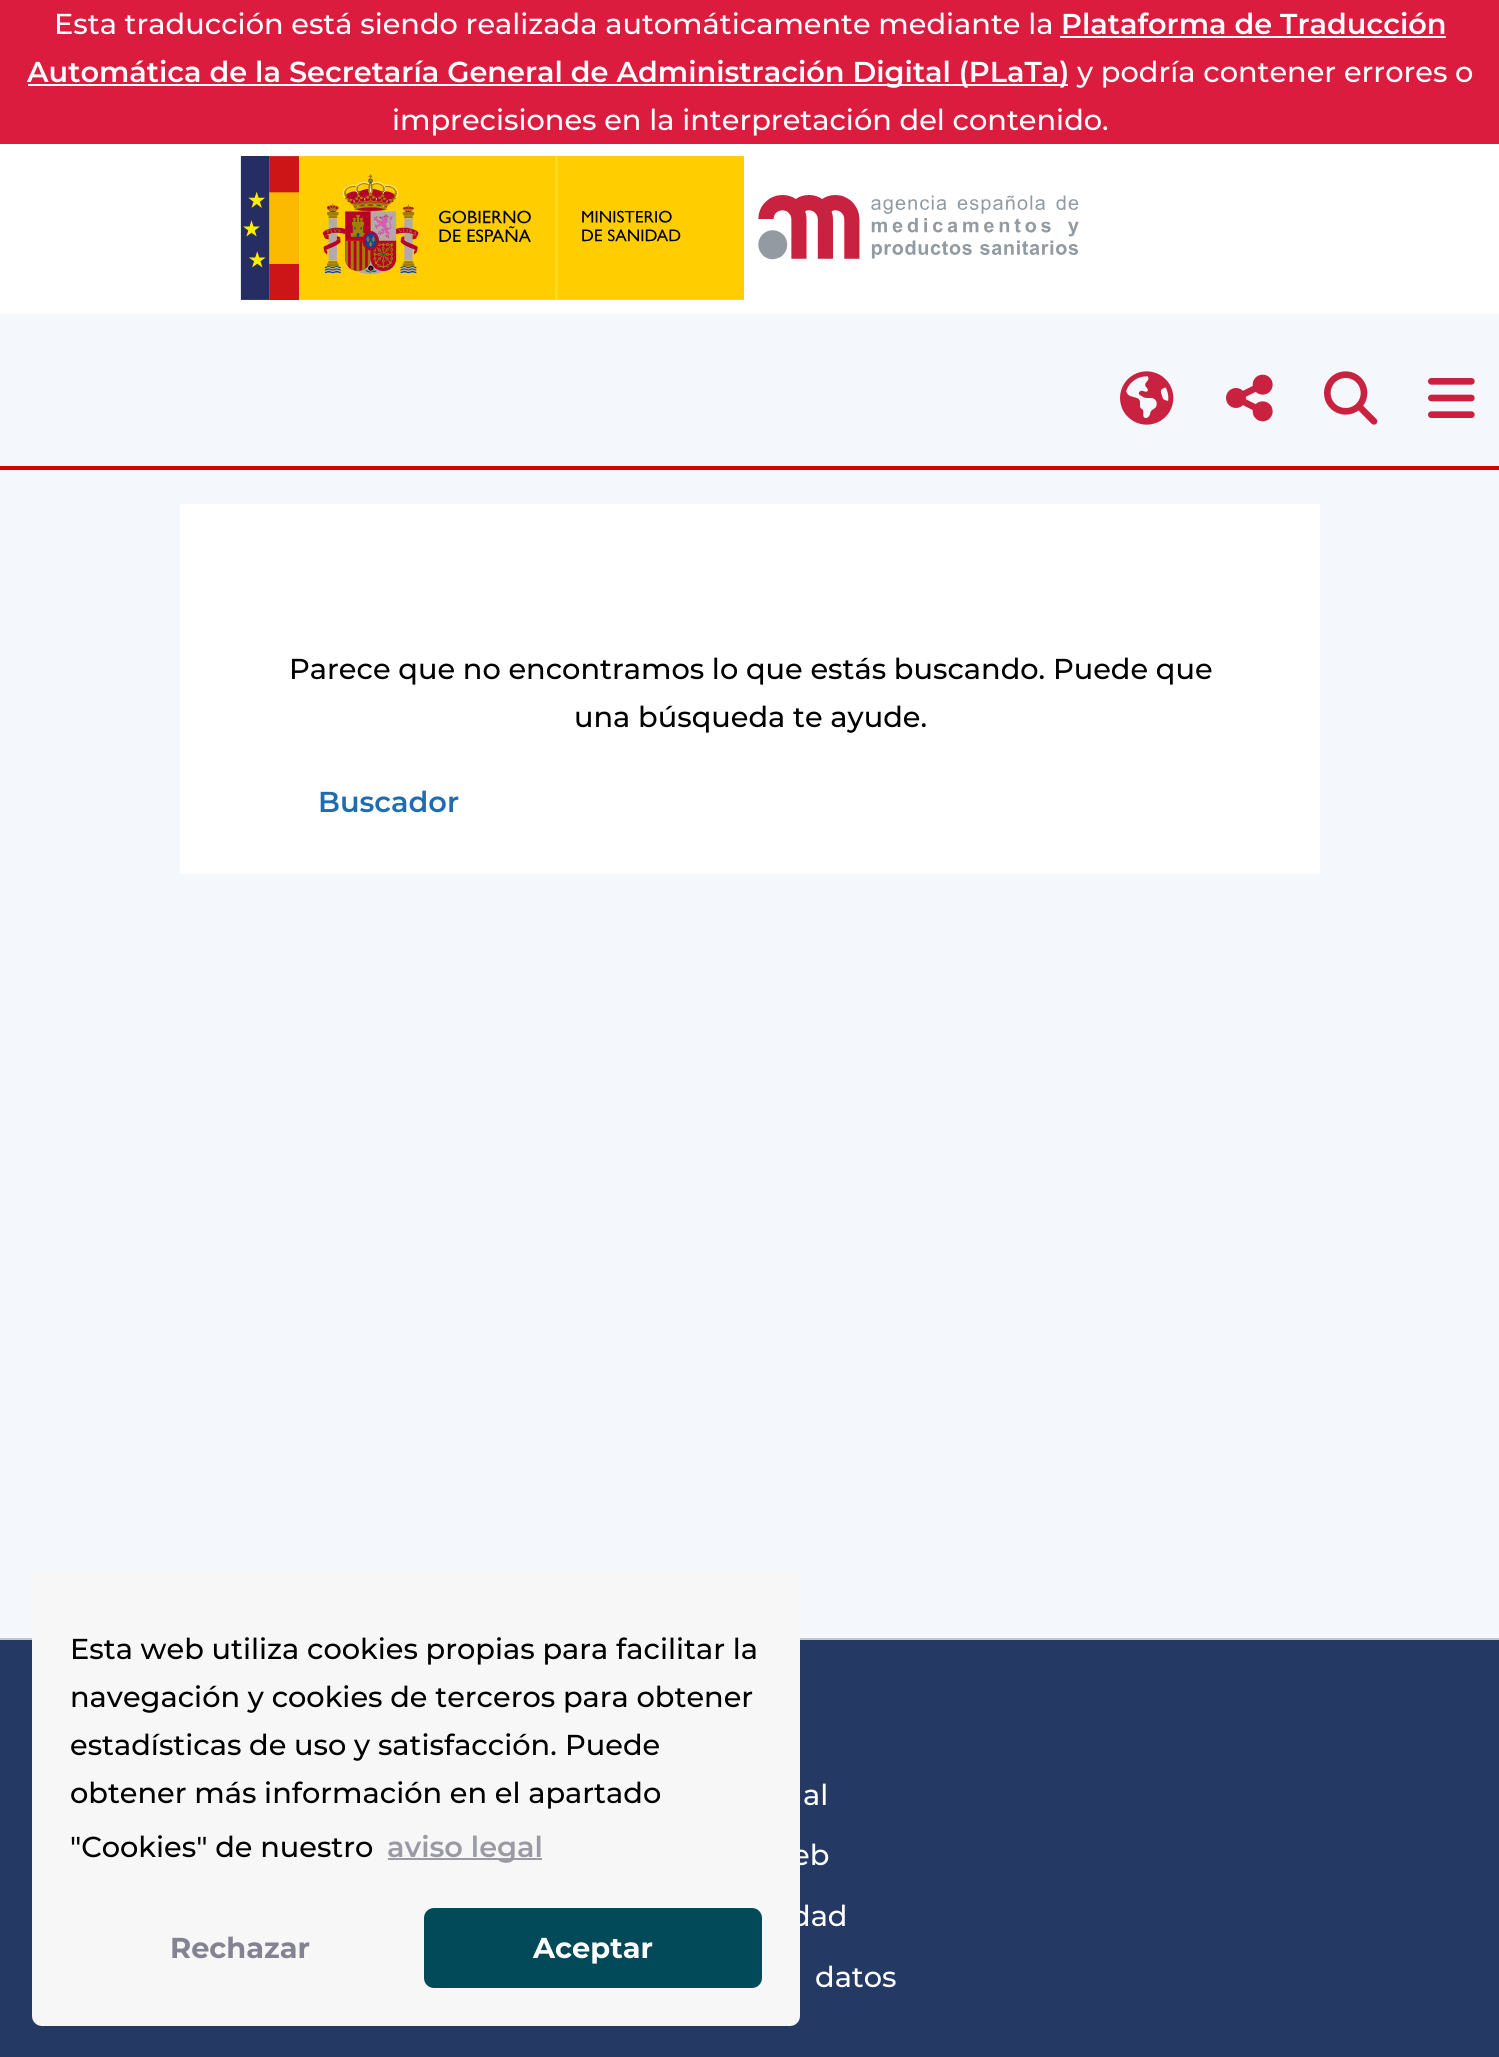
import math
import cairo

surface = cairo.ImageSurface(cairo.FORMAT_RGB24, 1499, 2057)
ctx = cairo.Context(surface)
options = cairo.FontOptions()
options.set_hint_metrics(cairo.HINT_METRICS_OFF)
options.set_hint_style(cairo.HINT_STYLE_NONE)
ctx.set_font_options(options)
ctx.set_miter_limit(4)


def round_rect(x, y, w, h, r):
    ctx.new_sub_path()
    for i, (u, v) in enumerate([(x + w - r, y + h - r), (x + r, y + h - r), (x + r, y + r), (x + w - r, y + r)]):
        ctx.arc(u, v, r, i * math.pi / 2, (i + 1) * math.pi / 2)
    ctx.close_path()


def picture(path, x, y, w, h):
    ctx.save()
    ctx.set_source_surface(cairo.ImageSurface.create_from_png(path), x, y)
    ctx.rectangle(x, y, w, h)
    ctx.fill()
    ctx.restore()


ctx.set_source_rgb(0.957, 0.969, 0.988)
ctx.paint()
ctx.set_source_rgb(0.859, 0.11, 0.247)
ctx.rectangle(0, 0, 1499, 144)
ctx.fill()
ctx.select_font_face("Montserrat Medium")
ctx.set_font_size(28.8)
ctx.set_source_rgb(1, 1, 1)
ctx.move_to(54, 34)
ctx.show_text("Esta traducción está siendo realizada automáticamente mediante la")
ctx.select_font_face("Montserrat SemiBold")
ctx.move_to(1061, 34)
ctx.show_text("Plataforma de Traducción")
ctx.rectangle(1060, 36, 386, 2)
ctx.fill()
ctx.rectangle(28, 84, 1040, 2)
ctx.fill()
ctx.move_to(27, 82)
ctx.show_text("Automática de la Secretaría General de Administración Digital (PLaTa)")
ctx.select_font_face("Montserrat Medium")
ctx.move_to(1077, 82)
ctx.show_text("y podría contener errores o")
ctx.move_to(392, 130)
ctx.show_text("imprecisiones en la interpretación del contenido.")
ctx.rectangle(0, 144, 1499, 170)
ctx.fill()
picture("img1.png", 240, 156, 839, 144)
ctx.set_source_rgb(0.851, 0, 0.004)
ctx.rectangle(0, 466, 1499, 4)
ctx.fill()
picture("img2.png", 1120, 371, 54, 54)
picture("img3.png", 1226, 374, 47, 48)
picture("img4.png", 1324, 371, 54, 54)
picture("img5.png", 1428, 378, 47, 40)
ctx.rectangle(195, 519, 1110, 340)
ctx.set_source_rgb(1, 1, 1)
ctx.set_line_width(30)
ctx.stroke()
ctx.rectangle(210, 534, 1080, 310)
ctx.fill()
ctx.set_source_rgb(0, 0, 0)
ctx.move_to(289, 679)
ctx.show_text("Parece que no encontramos lo que estás buscando. Puede que")
ctx.move_to(574, 727)
ctx.show_text("una búsqueda te ayude.")
ctx.select_font_face("Montserrat SemiBold")
ctx.set_source_rgb(0.118, 0.427, 0.694)
ctx.move_to(318, 812)
ctx.show_text("Buscador")
ctx.set_source_rgb(0.141, 0.227, 0.392)
ctx.rectangle(0, 1640, 1499, 417)
ctx.fill()
ctx.set_source_rgb(0.745, 0.788, 0.839)
ctx.rectangle(0, 1638, 1499, 2)
ctx.fill()
ctx.select_font_face("Montserrat Medium")
ctx.set_source_rgb(1, 1, 1)
ctx.move_to(792, 1865)
ctx.show_text("eb")
ctx.move_to(791, 1926)
ctx.show_text("dad")
ctx.set_source_rgb(0.965, 0.965, 0.965)
round_rect(32, 1570, 768, 456, 10)
ctx.fill()
ctx.set_source_rgb(0, 0, 0)
ctx.move_to(70, 1659)
ctx.show_text("Esta web utiliza cookies propias para facilitar la")
ctx.move_to(70, 1707)
ctx.show_text("navegación y cookies de terceros para obtener")
ctx.move_to(70, 1755)
ctx.show_text("estadísticas de uso y satisfacción.")
ctx.move_to(565, 1755)
ctx.show_text("Puede")
ctx.move_to(70, 1803)
ctx.show_text("obtener más información en el apartado")
ctx.move_to(70, 1857)
ctx.show_text("\"Cookies\" de nuestro")
ctx.set_source_rgb(0.604, 0.604, 0.647)
ctx.rectangle(388, 1858, 154, 2)
ctx.fill()
ctx.select_font_face("Montserrat SemiBold")
ctx.move_to(387, 1857)
ctx.show_text("aviso legal")
ctx.select_font_face("Montserrat", cairo.FONT_SLANT_NORMAL, cairo.FONT_WEIGHT_BOLD)
ctx.set_source_rgb(0.514, 0.514, 0.569)
ctx.move_to(170, 1958)
ctx.show_text("Rechazar")
ctx.set_source_rgb(0.008, 0.286, 0.349)
round_rect(424, 1908, 338, 80, 10)
ctx.fill()
ctx.set_source_rgb(1, 1, 1)
ctx.move_to(533, 1958)
ctx.show_text("Aceptar")
ctx.select_font_face("Montserrat Medium")
ctx.move_to(803, 1805)
ctx.show_text("al")
ctx.move_to(815, 1987)
ctx.show_text("datos")
surface.write_to_png("page.png")
